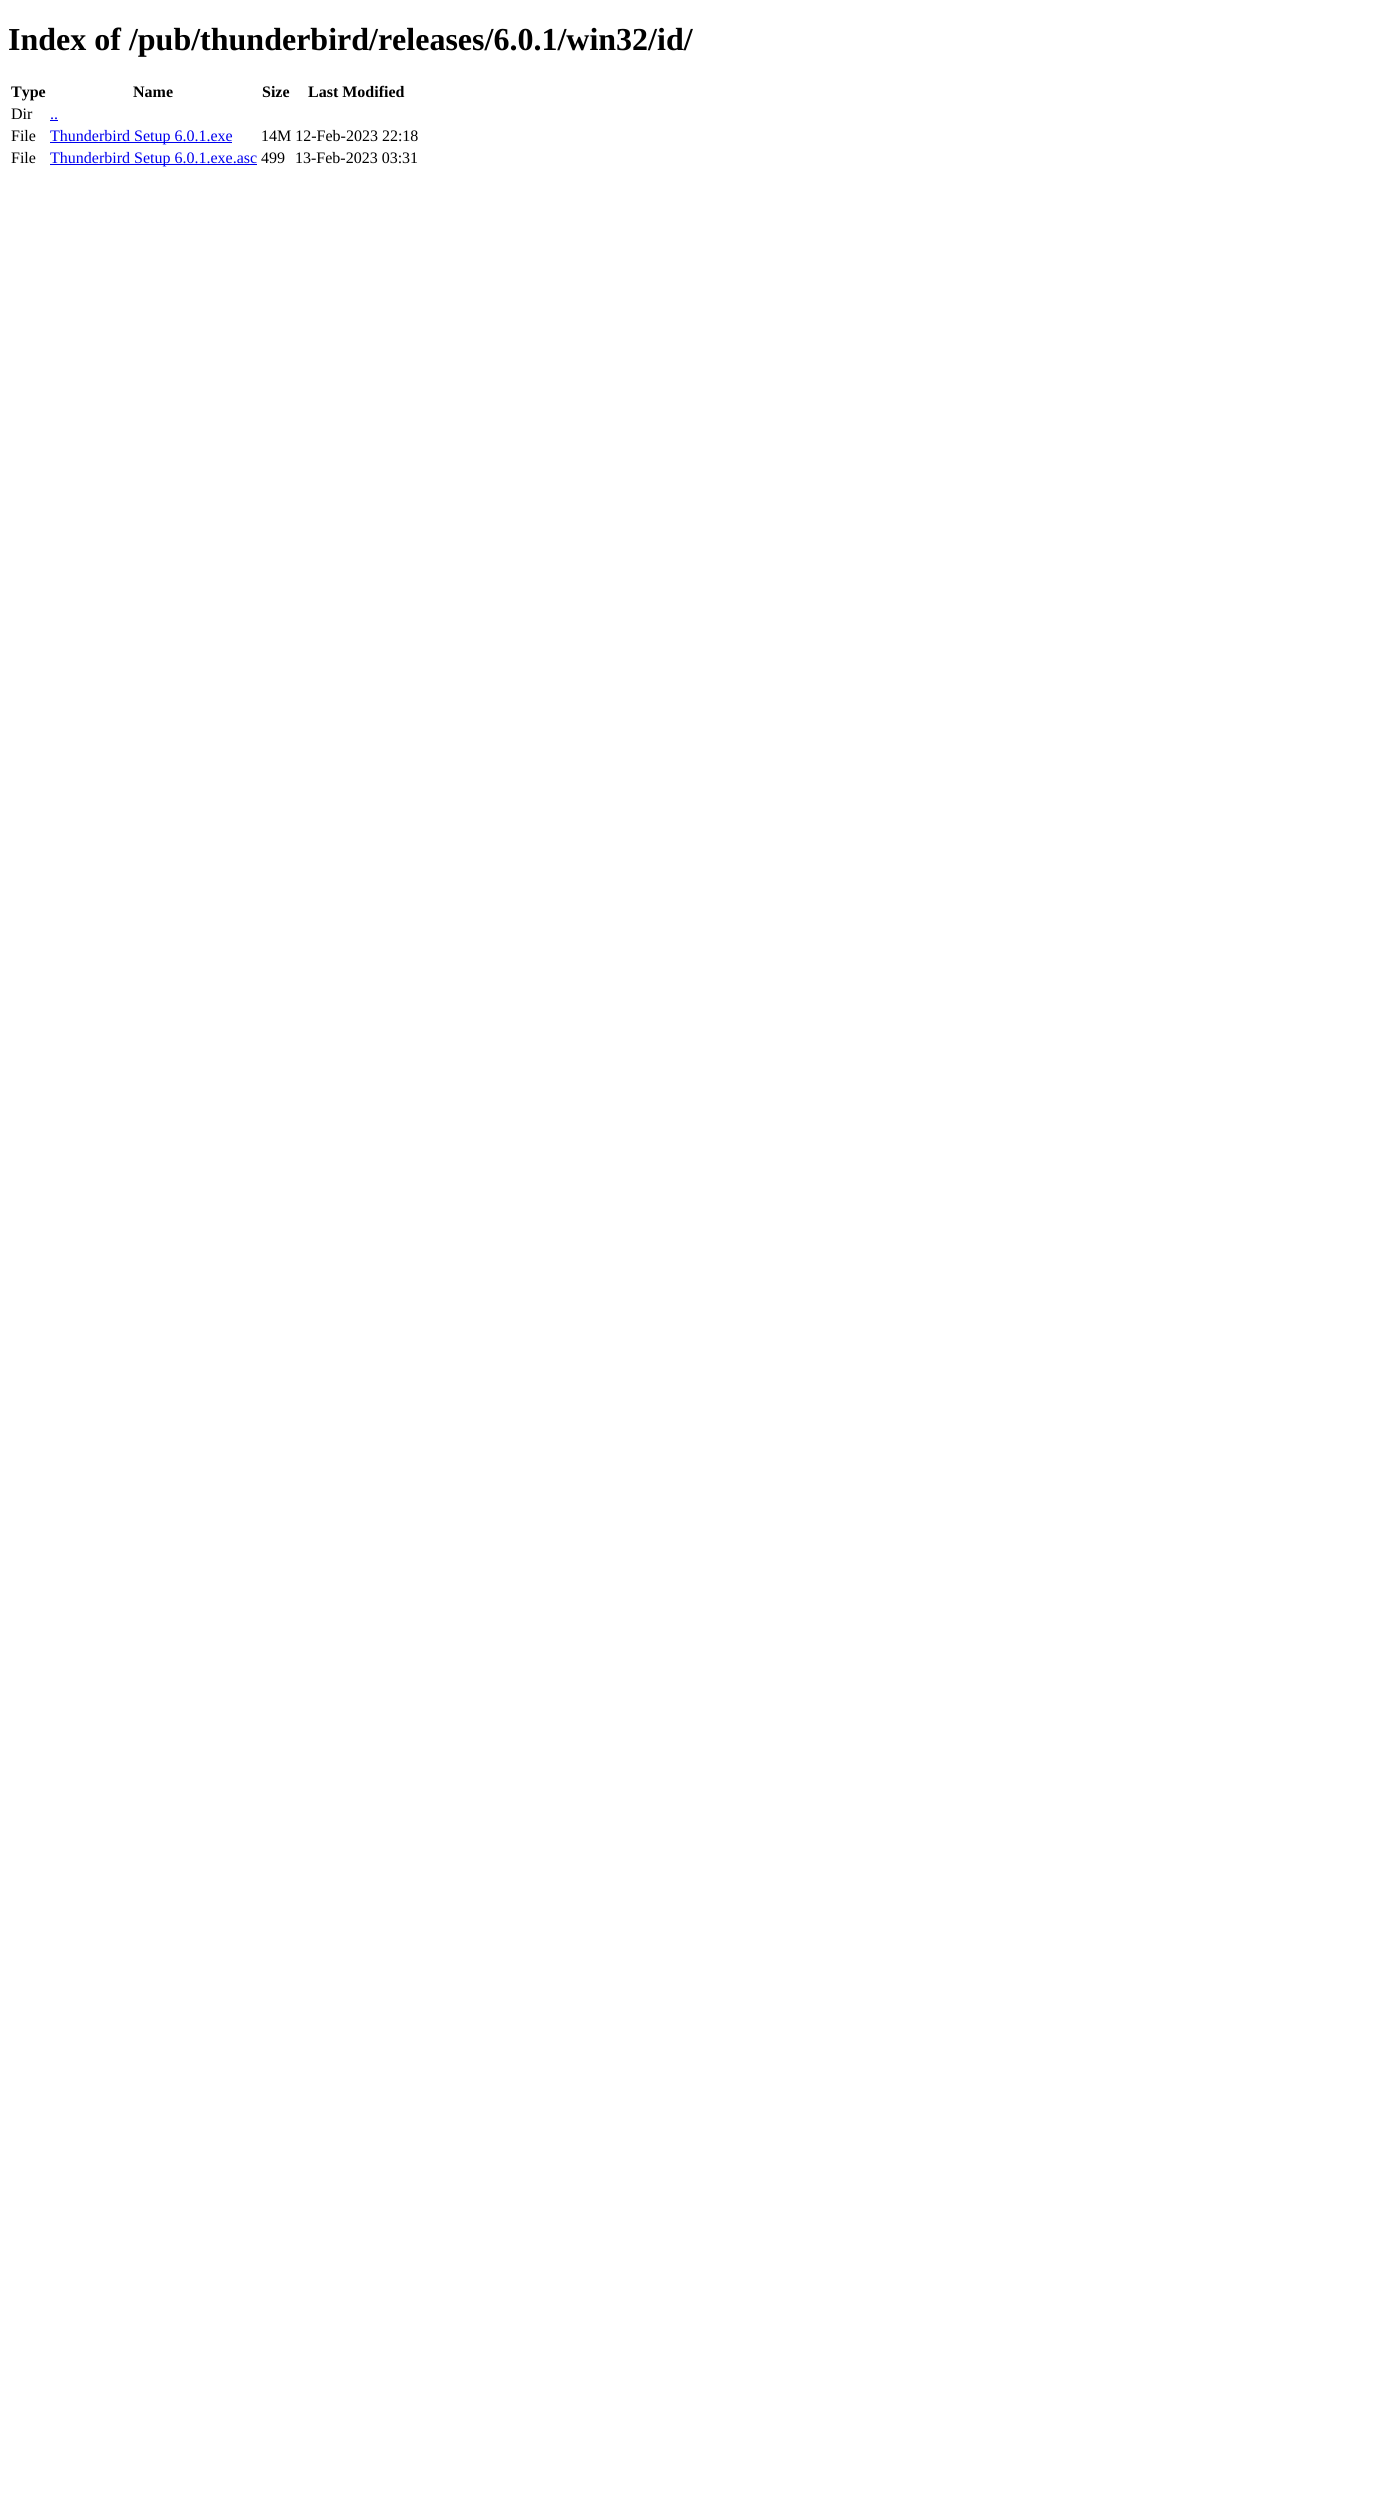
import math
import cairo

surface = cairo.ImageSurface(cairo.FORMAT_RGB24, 1394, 2512)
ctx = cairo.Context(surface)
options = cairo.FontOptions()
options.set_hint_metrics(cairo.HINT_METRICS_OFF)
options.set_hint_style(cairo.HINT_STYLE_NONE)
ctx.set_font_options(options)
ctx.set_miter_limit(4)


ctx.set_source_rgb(1, 1, 1)
ctx.paint()
ctx.select_font_face("Liberation Serif", cairo.FONT_SLANT_NORMAL, cairo.FONT_WEIGHT_BOLD)
ctx.set_font_size(32)
ctx.set_source_rgb(0, 0, 0)
ctx.move_to(8, 50)
ctx.show_text("Index of /pub/thunderbird/releases/6.0.1/win32/id/")
ctx.set_font_size(16)
ctx.move_to(11, 97)
ctx.show_text("Type")
ctx.move_to(133, 97)
ctx.show_text("Name")
ctx.move_to(262, 97)
ctx.show_text("Size")
ctx.move_to(308, 97)
ctx.show_text("Last Modified")
ctx.select_font_face("Liberation Serif")
ctx.move_to(11, 119)
ctx.show_text("Dir")
ctx.set_source_rgb(0, 0, 0.933)
ctx.move_to(50, 119)
ctx.show_text("..")
ctx.rectangle(50, 120, 8, 1)
ctx.fill()
ctx.set_source_rgb(0, 0, 0)
ctx.move_to(11, 141)
ctx.show_text("File")
ctx.set_source_rgb(0, 0, 0.933)
ctx.rectangle(50, 142, 182, 1)
ctx.fill()
ctx.move_to(50, 141)
ctx.show_text("Thunderbird Setup 6.0.1.exe")
ctx.set_source_rgb(0, 0, 0)
ctx.move_to(261, 141)
ctx.show_text("14M 12-Feb-2023 22:18")
ctx.move_to(11, 163)
ctx.show_text("File")
ctx.set_source_rgb(0, 0, 0.933)
ctx.rectangle(50, 164, 207, 1)
ctx.fill()
ctx.move_to(50, 163)
ctx.show_text("Thunderbird Setup 6.0.1.exe.asc")
ctx.set_source_rgb(0, 0, 0)
ctx.move_to(261, 163)
ctx.show_text("499")
ctx.move_to(295, 163)
ctx.show_text("13-Feb-2023 03:31")
surface.write_to_png("page.png")
